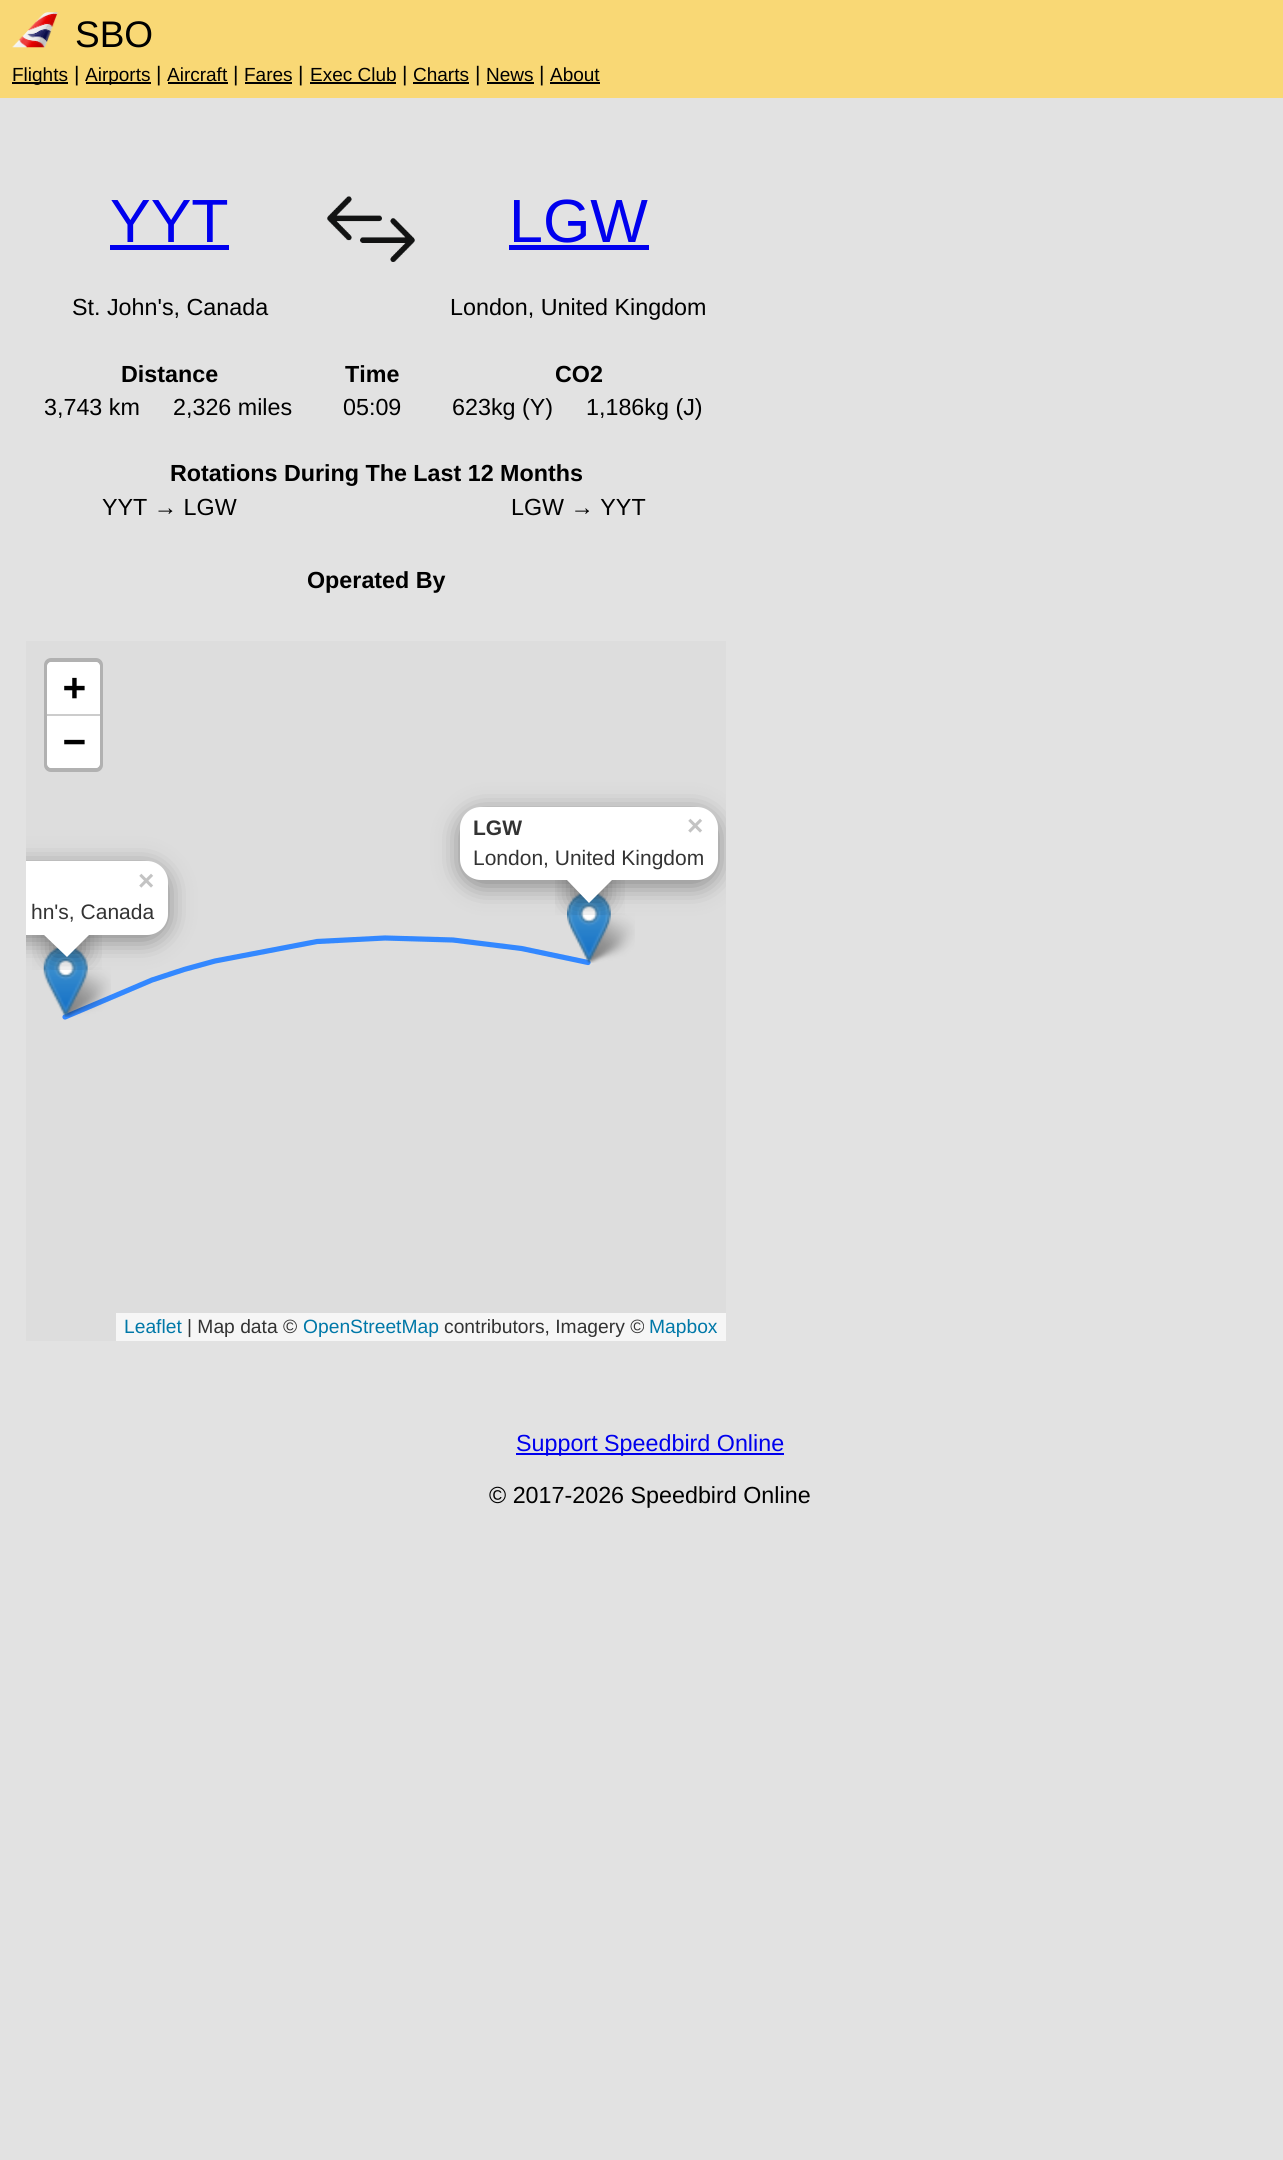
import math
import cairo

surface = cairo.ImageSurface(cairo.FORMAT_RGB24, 1283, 2160)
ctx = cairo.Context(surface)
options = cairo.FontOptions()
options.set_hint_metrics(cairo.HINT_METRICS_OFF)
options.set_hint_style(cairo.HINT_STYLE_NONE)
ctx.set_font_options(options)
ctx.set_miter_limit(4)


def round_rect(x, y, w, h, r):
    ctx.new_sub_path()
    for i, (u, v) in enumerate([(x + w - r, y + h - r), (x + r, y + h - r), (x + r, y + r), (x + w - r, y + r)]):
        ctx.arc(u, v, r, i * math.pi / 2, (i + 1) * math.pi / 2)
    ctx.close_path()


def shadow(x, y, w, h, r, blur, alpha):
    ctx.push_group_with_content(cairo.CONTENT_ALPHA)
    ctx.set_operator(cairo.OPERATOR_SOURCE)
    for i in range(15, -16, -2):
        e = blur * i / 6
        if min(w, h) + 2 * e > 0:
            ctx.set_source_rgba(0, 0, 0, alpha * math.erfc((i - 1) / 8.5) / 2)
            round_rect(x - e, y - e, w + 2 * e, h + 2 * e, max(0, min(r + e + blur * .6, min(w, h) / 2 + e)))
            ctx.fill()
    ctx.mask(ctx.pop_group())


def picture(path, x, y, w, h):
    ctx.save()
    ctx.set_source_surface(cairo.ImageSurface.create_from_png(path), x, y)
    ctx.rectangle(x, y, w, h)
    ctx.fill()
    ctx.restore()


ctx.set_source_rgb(0.886, 0.886, 0.886)
ctx.paint()
ctx.set_source_rgb(0.973, 0.847, 0.459)
ctx.rectangle(0, 0, 1283, 98)
ctx.fill()
picture("img1.png", 12, 12, 46, 36)
ctx.select_font_face("Liberation Sans")
ctx.set_font_size(37)
ctx.set_source_rgb(0, 0, 0)
ctx.move_to(75, 47)
ctx.show_text("SBO")
ctx.rectangle(12, 82, 56, 2)
ctx.fill()
ctx.set_font_size(19)
ctx.move_to(12, 81)
ctx.show_text("Flights")
ctx.set_font_size(21)
ctx.move_to(74, 81)
ctx.show_text("|")
ctx.rectangle(86, 82, 65, 2)
ctx.fill()
ctx.set_font_size(19)
ctx.move_to(85, 81)
ctx.show_text("Airports")
ctx.set_font_size(21)
ctx.move_to(156, 81)
ctx.show_text("|")
ctx.set_font_size(19)
ctx.move_to(167, 81)
ctx.show_text("Aircraft")
ctx.rectangle(168, 82, 60, 2)
ctx.fill()
ctx.set_font_size(21)
ctx.move_to(233, 81)
ctx.show_text("|")
ctx.set_font_size(19)
ctx.move_to(244, 81)
ctx.show_text("Fares")
ctx.rectangle(245, 82, 47, 2)
ctx.fill()
ctx.set_font_size(21)
ctx.move_to(298, 81)
ctx.show_text("|")
ctx.set_font_size(19)
ctx.move_to(310, 81)
ctx.show_text("Exec Club")
ctx.rectangle(310, 82, 86, 2)
ctx.fill()
ctx.set_font_size(21)
ctx.move_to(402, 81)
ctx.show_text("|")
ctx.set_font_size(19)
ctx.move_to(413, 81)
ctx.show_text("Charts")
ctx.rectangle(413, 82, 56, 2)
ctx.fill()
ctx.set_font_size(21)
ctx.move_to(475, 81)
ctx.show_text("|")
ctx.set_font_size(19)
ctx.move_to(486, 81)
ctx.show_text("News")
ctx.rectangle(487, 82, 47, 2)
ctx.fill()
ctx.set_font_size(21)
ctx.move_to(539, 81)
ctx.show_text("|")
ctx.set_font_size(19)
ctx.move_to(550, 81)
ctx.show_text("About")
ctx.rectangle(550, 82, 50, 2)
ctx.fill()
ctx.set_font_size(61)
ctx.set_source_rgb(0, 0, 0.933)
ctx.move_to(110, 242)
ctx.show_text("YYT")
ctx.rectangle(110, 245, 119, 5)
ctx.fill()
picture("img2.png", 327, 196, 88, 66)
ctx.move_to(509, 242)
ctx.show_text("LGW")
ctx.rectangle(509, 245, 140, 5)
ctx.fill()
ctx.set_font_size(23.3)
ctx.set_source_rgb(0, 0, 0)
ctx.move_to(72, 315)
ctx.show_text("St. John's, Canada")
ctx.move_to(450, 315)
ctx.show_text("London, United Kingdom")
ctx.select_font_face("Liberation Sans", cairo.FONT_SLANT_NORMAL, cairo.FONT_WEIGHT_BOLD)
ctx.move_to(121, 382)
ctx.show_text("Distance")
ctx.move_to(345, 382)
ctx.show_text("Time")
ctx.move_to(555, 382)
ctx.show_text("CO2")
ctx.select_font_face("Liberation Sans")
ctx.move_to(44, 415)
ctx.show_text("3,743 km")
ctx.move_to(173, 415)
ctx.show_text("2,326 miles")
ctx.move_to(343, 415)
ctx.show_text("05:09")
ctx.move_to(452, 415)
ctx.show_text("623kg (Y)")
ctx.move_to(586, 415)
ctx.show_text("1,186kg (J)")
ctx.select_font_face("Liberation Sans", cairo.FONT_SLANT_NORMAL, cairo.FONT_WEIGHT_BOLD)
ctx.move_to(170, 481)
ctx.show_text("Rotations During The Last 12 Months")
ctx.select_font_face("Liberation Sans")
ctx.move_to(102, 515)
ctx.show_text("YYT → LGW")
ctx.move_to(511, 515)
ctx.show_text("LGW → YYT")
ctx.select_font_face("Liberation Sans", cairo.FONT_SLANT_NORMAL, cairo.FONT_WEIGHT_BOLD)
ctx.move_to(307, 588)
ctx.show_text("Operated By")
ctx.set_source_rgb(0.867, 0.867, 0.867)
ctx.rectangle(26, 641, 700, 700)
ctx.fill()
round_rect(46, 660, 55, 110, 5)
ctx.set_source_rgb(0.694, 0.694, 0.694)
ctx.set_line_width(4)
ctx.stroke()
ctx.set_source_rgb(1, 1, 1)
ctx.new_path()
ctx.move_to(51, 662)
ctx.line_to(96, 662)
ctx.curve_to(98, 662, 100, 664, 100, 666)
ctx.line_to(100, 716)
ctx.line_to(47, 716)
ctx.line_to(47, 666)
ctx.curve_to(47, 664, 49, 662, 51, 662)
ctx.close_path()
ctx.fill()
ctx.set_source_rgb(0.8, 0.8, 0.8)
ctx.rectangle(47, 714, 53, 2)
ctx.fill()
ctx.select_font_face("DejaVu Sans Mono", cairo.FONT_SLANT_NORMAL, cairo.FONT_WEIGHT_BOLD)
ctx.set_font_size(38)
ctx.set_source_rgb(0, 0, 0)
ctx.move_to(63, 700)
ctx.show_text("+")
ctx.set_source_rgb(1, 1, 1)
ctx.new_path()
ctx.move_to(47, 716)
ctx.line_to(100, 716)
ctx.line_to(100, 764)
ctx.curve_to(100, 766, 98, 768, 96, 768)
ctx.line_to(51, 768)
ctx.curve_to(49, 768, 47, 766, 47, 764)
ctx.close_path()
ctx.fill()
ctx.set_source_rgb(0, 0, 0)
ctx.move_to(63, 754)
ctx.show_text("−")
ctx.set_source_rgb(0.961, 0.961, 0.961)
ctx.rectangle(116, 1313, 610, 28)
ctx.fill()
ctx.select_font_face("Liberation Sans")
ctx.set_font_size(19.25)
ctx.set_source_rgb(0, 0.471, 0.659)
ctx.move_to(124, 1333)
ctx.show_text("Leaflet")
ctx.set_source_rgb(0.2, 0.2, 0.2)
ctx.move_to(187, 1333)
ctx.show_text("| Map data ©")
ctx.set_source_rgb(0, 0.471, 0.659)
ctx.move_to(303, 1333)
ctx.show_text("OpenStreetMap")
ctx.set_source_rgb(0.2, 0.2, 0.2)
ctx.move_to(444, 1333)
ctx.show_text("contributors, Imagery ©")
ctx.set_source_rgb(0, 0.471, 0.659)
ctx.move_to(649, 1333)
ctx.show_text("Mapbox")
ctx.new_path()
ctx.move_to(65, 1017)
ctx.line_to(152, 980)
ctx.line_to(184, 969.5)
ctx.line_to(215, 961)
ctx.line_to(317, 941.5)
ctx.line_to(385, 938)
ctx.line_to(453, 940)
ctx.line_to(521.5, 948.5)
ctx.line_to(588, 962.5)
ctx.set_source_rgb(0.2, 0.533, 1)
ctx.set_line_width(5.2)
ctx.set_line_cap(cairo.LINE_CAP_ROUND)
ctx.set_line_join(cairo.LINE_JOIN_ROUND)
ctx.stroke()
picture("img5.png", 583, 913, 52, 50)
picture("img3.png", 567, 892, 44, 71)
ctx.save()
ctx.rectangle(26, 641, 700, 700)
ctx.clip()
ctx.set_source_rgb(0, 0, 0)
shadow(460, 812, 258, 74, 21, 12, 0.4)
ctx.restore()
ctx.set_source_rgb(1, 1, 1)
round_rect(460, 807, 258, 73, 21)
ctx.fill()
ctx.select_font_face("Liberation Sans", cairo.FONT_SLANT_NORMAL, cairo.FONT_WEIGHT_BOLD)
ctx.set_font_size(28)
ctx.set_source_rgb(0.765, 0.765, 0.765)
ctx.move_to(687, 835)
ctx.show_text("×")
ctx.set_font_size(21)
ctx.set_source_rgb(0.2, 0.2, 0.2)
ctx.move_to(473, 835)
ctx.show_text("LGW")
ctx.select_font_face("Liberation Sans")
ctx.move_to(473, 865)
ctx.show_text("London, United Kingdom")
ctx.save()
ctx.rectangle(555, 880, 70, 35)
ctx.clip()
ctx.set_source_rgb(0, 0, 0)
shadow(572, 868, 34, 33, 0, 12.5, 0.4)
ctx.restore()
ctx.save()
ctx.rectangle(555, 880, 70, 35)
ctx.clip()
ctx.set_source_rgb(1, 1, 1)
ctx.new_path()
ctx.move_to(589, 856)
ctx.line_to(613, 879)
ctx.line_to(589, 903)
ctx.line_to(566, 879)
ctx.close_path()
ctx.fill()
ctx.restore()
picture("img6.png", 59, 967, 52, 50)
picture("img4.png", 43, 946, 45, 71)
ctx.save()
ctx.rectangle(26, 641, 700, 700)
ctx.clip()
ctx.set_source_rgb(0, 0, 0)
shadow(-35, 866, 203, 74, 21, 12, 0.4)
ctx.restore()
ctx.set_source_rgb(1, 1, 1)
ctx.new_path()
ctx.move_to(26, 861)
ctx.line_to(147, 861)
ctx.curve_to(158.5, 861, 168, 870.5, 168, 882)
ctx.line_to(168, 914)
ctx.curve_to(168, 925.5, 158.5, 935, 147, 935)
ctx.line_to(26, 935)
ctx.close_path()
ctx.fill()
ctx.select_font_face("Liberation Sans", cairo.FONT_SLANT_NORMAL, cairo.FONT_WEIGHT_BOLD)
ctx.set_font_size(28)
ctx.set_source_rgb(0.765, 0.765, 0.765)
ctx.move_to(138, 890)
ctx.show_text("×")
ctx.save()
ctx.rectangle(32, 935, 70, 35)
ctx.clip()
ctx.set_source_rgb(0, 0, 0)
shadow(51, 922, 33, 34, 0, 12.5, 0.4)
ctx.restore()
ctx.save()
ctx.rectangle(32, 935, 70, 35)
ctx.clip()
ctx.set_source_rgb(1, 1, 1)
ctx.new_path()
ctx.move_to(67, 910)
ctx.line_to(90, 934)
ctx.line_to(67, 957)
ctx.line_to(43, 934)
ctx.close_path()
ctx.fill()
ctx.restore()
ctx.select_font_face("Liberation Sans")
ctx.set_font_size(21)
ctx.set_source_rgb(0.2, 0.2, 0.2)
ctx.move_to(31, 919)
ctx.show_text("hn's, Canada")
ctx.set_source_rgb(0, 0, 0.933)
ctx.rectangle(516, 1453, 268, 2)
ctx.fill()
ctx.set_font_size(23.3)
ctx.move_to(516, 1451)
ctx.show_text("Support Speedbird Online")
ctx.set_source_rgb(0, 0, 0)
ctx.move_to(489, 1503)
ctx.show_text("© 2017-2026 Speedbird Online")
surface.write_to_png("page.png")
